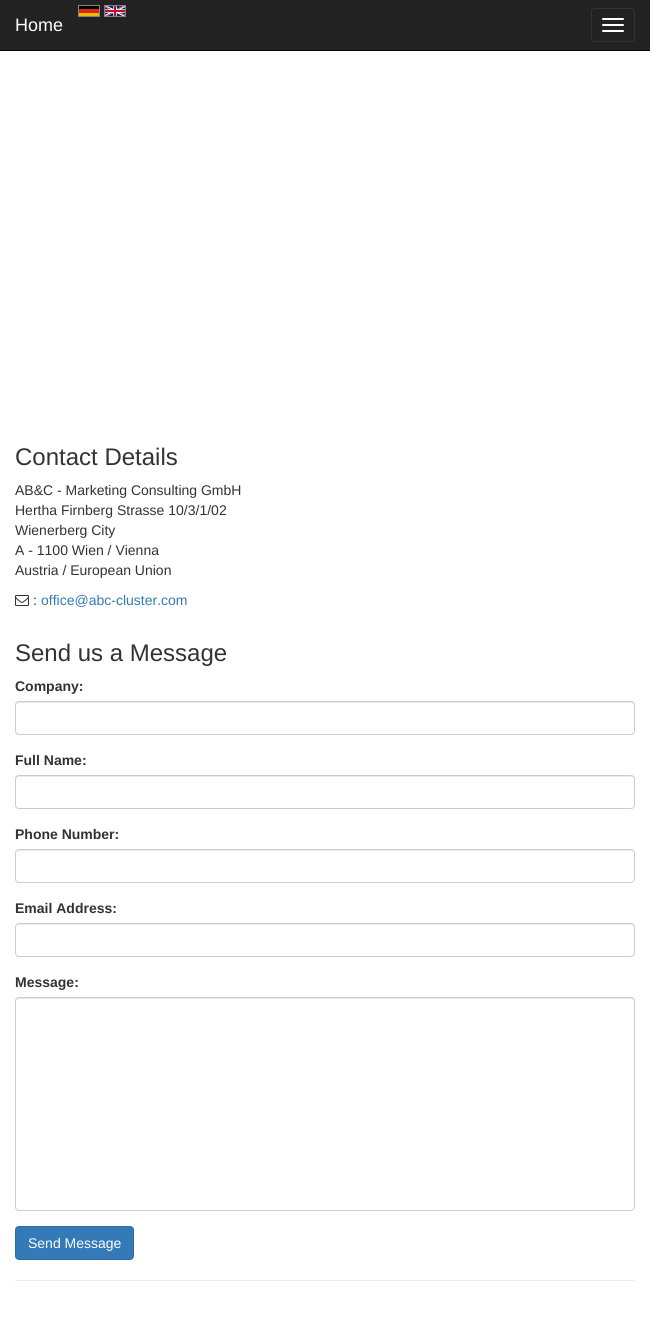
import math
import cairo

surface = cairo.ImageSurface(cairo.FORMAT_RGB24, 650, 1343)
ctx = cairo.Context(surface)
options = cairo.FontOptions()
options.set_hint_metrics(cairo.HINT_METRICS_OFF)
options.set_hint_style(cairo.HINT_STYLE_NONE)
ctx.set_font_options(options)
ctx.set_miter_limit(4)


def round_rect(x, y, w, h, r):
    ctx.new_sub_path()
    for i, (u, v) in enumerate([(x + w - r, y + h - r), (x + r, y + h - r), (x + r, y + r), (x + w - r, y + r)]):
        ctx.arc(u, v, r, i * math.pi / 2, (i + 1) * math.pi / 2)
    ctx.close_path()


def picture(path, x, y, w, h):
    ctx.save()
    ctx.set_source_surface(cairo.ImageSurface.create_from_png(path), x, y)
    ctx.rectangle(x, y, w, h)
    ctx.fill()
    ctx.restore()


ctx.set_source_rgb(1, 1, 1)
ctx.paint()
ctx.set_source_rgb(0.133, 0.133, 0.133)
ctx.rectangle(0, 0, 650, 50)
ctx.fill()
ctx.set_source_rgb(0.031, 0.031, 0.031)
ctx.rectangle(0, 50, 650, 1)
ctx.fill()
ctx.select_font_face("Liberation Sans")
ctx.set_font_size(18)
ctx.set_source_rgb(1, 1, 1)
ctx.move_to(15, 31)
ctx.show_text("Home")
picture("img1.png", 78, 5, 22, 12)
picture("img2.png", 104, 5, 22, 12)
round_rect(591.5, 8.5, 43, 33, 3.5)
ctx.set_source_rgb(0.2, 0.2, 0.2)
ctx.set_line_width(1)
ctx.stroke()
ctx.set_source_rgb(1, 1, 1)
round_rect(602, 18, 22, 2, 1)
ctx.fill()
round_rect(602, 24, 22, 2, 1)
ctx.fill()
round_rect(602, 30, 22, 2, 1)
ctx.fill()
ctx.set_font_size(24)
ctx.set_source_rgb(0.2, 0.2, 0.2)
ctx.move_to(15, 465)
ctx.show_text("Contact Details")
ctx.set_font_size(14)
ctx.move_to(15, 495)
ctx.show_text("AB&C - Marketing Consulting GmbH")
ctx.move_to(15, 515)
ctx.show_text("Hertha Firnberg Strasse 10/3/1/02")
ctx.move_to(15, 535)
ctx.show_text("Wienerberg City")
ctx.move_to(15, 555)
ctx.show_text("A - 1100 Wien / Vienna")
ctx.move_to(15, 575)
ctx.show_text("Austria / European Union")
picture("img3.png", 15, 595, 14, 11)
ctx.move_to(33, 605)
ctx.show_text(":")
ctx.set_source_rgb(0.2, 0.478, 0.718)
ctx.move_to(41, 605)
ctx.show_text("office@abc-cluster.com")
ctx.set_font_size(24)
ctx.set_source_rgb(0.2, 0.2, 0.2)
ctx.move_to(15, 661)
ctx.show_text("Send us a Message")
ctx.select_font_face("Liberation Sans", cairo.FONT_SLANT_NORMAL, cairo.FONT_WEIGHT_BOLD)
ctx.set_font_size(14)
ctx.move_to(15, 691)
ctx.show_text("Company:")
ctx.set_source_rgb(0.925, 0.925, 0.925)
ctx.new_path()
ctx.move_to(19, 703)
ctx.line_to(631, 703)
ctx.curve_to(633, 703, 634, 704, 634, 706)
ctx.line_to(634, 705)
ctx.curve_to(634, 703, 633, 702, 631, 702)
ctx.line_to(19, 702)
ctx.curve_to(17, 702, 16, 703, 16, 705)
ctx.line_to(16, 706)
ctx.curve_to(16, 704, 17, 703, 19, 703)
ctx.close_path()
ctx.fill()
round_rect(15.5, 701.5, 619, 33, 3.5)
ctx.set_source_rgb(0.8, 0.8, 0.8)
ctx.stroke()
ctx.set_source_rgb(0.2, 0.2, 0.2)
ctx.move_to(15, 765)
ctx.show_text("Full Name:")
ctx.set_source_rgb(0.925, 0.925, 0.925)
ctx.new_path()
ctx.move_to(19, 777)
ctx.line_to(631, 777)
ctx.curve_to(633, 777, 634, 778, 634, 780)
ctx.line_to(634, 779)
ctx.curve_to(634, 777, 633, 776, 631, 776)
ctx.line_to(19, 776)
ctx.curve_to(17, 776, 16, 777, 16, 779)
ctx.line_to(16, 780)
ctx.curve_to(16, 778, 17, 777, 19, 777)
ctx.close_path()
ctx.fill()
round_rect(15.5, 775.5, 619, 33, 3.5)
ctx.set_source_rgb(0.8, 0.8, 0.8)
ctx.stroke()
ctx.set_source_rgb(0.2, 0.2, 0.2)
ctx.move_to(15, 839)
ctx.show_text("Phone Number:")
ctx.set_source_rgb(0.925, 0.925, 0.925)
ctx.new_path()
ctx.move_to(19, 851)
ctx.line_to(631, 851)
ctx.curve_to(633, 851, 634, 852, 634, 854)
ctx.line_to(634, 853)
ctx.curve_to(634, 851, 633, 850, 631, 850)
ctx.line_to(19, 850)
ctx.curve_to(17, 850, 16, 851, 16, 853)
ctx.line_to(16, 854)
ctx.curve_to(16, 852, 17, 851, 19, 851)
ctx.close_path()
ctx.fill()
round_rect(15.5, 849.5, 619, 33, 3.5)
ctx.set_source_rgb(0.8, 0.8, 0.8)
ctx.stroke()
ctx.set_source_rgb(0.2, 0.2, 0.2)
ctx.move_to(15, 913)
ctx.show_text("Email Address:")
ctx.set_source_rgb(0.925, 0.925, 0.925)
ctx.new_path()
ctx.move_to(19, 925)
ctx.line_to(631, 925)
ctx.curve_to(633, 925, 634, 926, 634, 928)
ctx.line_to(634, 927)
ctx.curve_to(634, 925, 633, 924, 631, 924)
ctx.line_to(19, 924)
ctx.curve_to(17, 924, 16, 925, 16, 927)
ctx.line_to(16, 928)
ctx.curve_to(16, 926, 17, 925, 19, 925)
ctx.close_path()
ctx.fill()
round_rect(15.5, 923.5, 619, 33, 3.5)
ctx.set_source_rgb(0.8, 0.8, 0.8)
ctx.stroke()
ctx.set_source_rgb(0.2, 0.2, 0.2)
ctx.move_to(15, 987)
ctx.show_text("Message:")
ctx.set_source_rgb(0.925, 0.925, 0.925)
ctx.new_path()
ctx.move_to(19, 999)
ctx.line_to(631, 999)
ctx.curve_to(633, 999, 634, 1000, 634, 1002)
ctx.line_to(634, 1001)
ctx.curve_to(634, 999, 633, 998, 631, 998)
ctx.line_to(19, 998)
ctx.curve_to(17, 998, 16, 999, 16, 1001)
ctx.line_to(16, 1002)
ctx.curve_to(16, 1000, 17, 999, 19, 999)
ctx.close_path()
ctx.fill()
round_rect(15.5, 997.5, 619, 213, 3.5)
ctx.set_source_rgb(0.8, 0.8, 0.8)
ctx.stroke()
ctx.set_source_rgb(0.2, 0.478, 0.718)
round_rect(15.5, 1226.5, 118, 33, 3.5)
ctx.fill_preserve()
ctx.set_source_rgb(0.18, 0.427, 0.643)
ctx.stroke()
ctx.select_font_face("Liberation Sans")
ctx.set_source_rgb(1, 1, 1)
ctx.move_to(28, 1248)
ctx.show_text("Send Message")
ctx.set_source_rgb(0.933, 0.933, 0.933)
ctx.rectangle(15, 1280, 620, 1)
ctx.fill()
surface.write_to_png("page.png")
